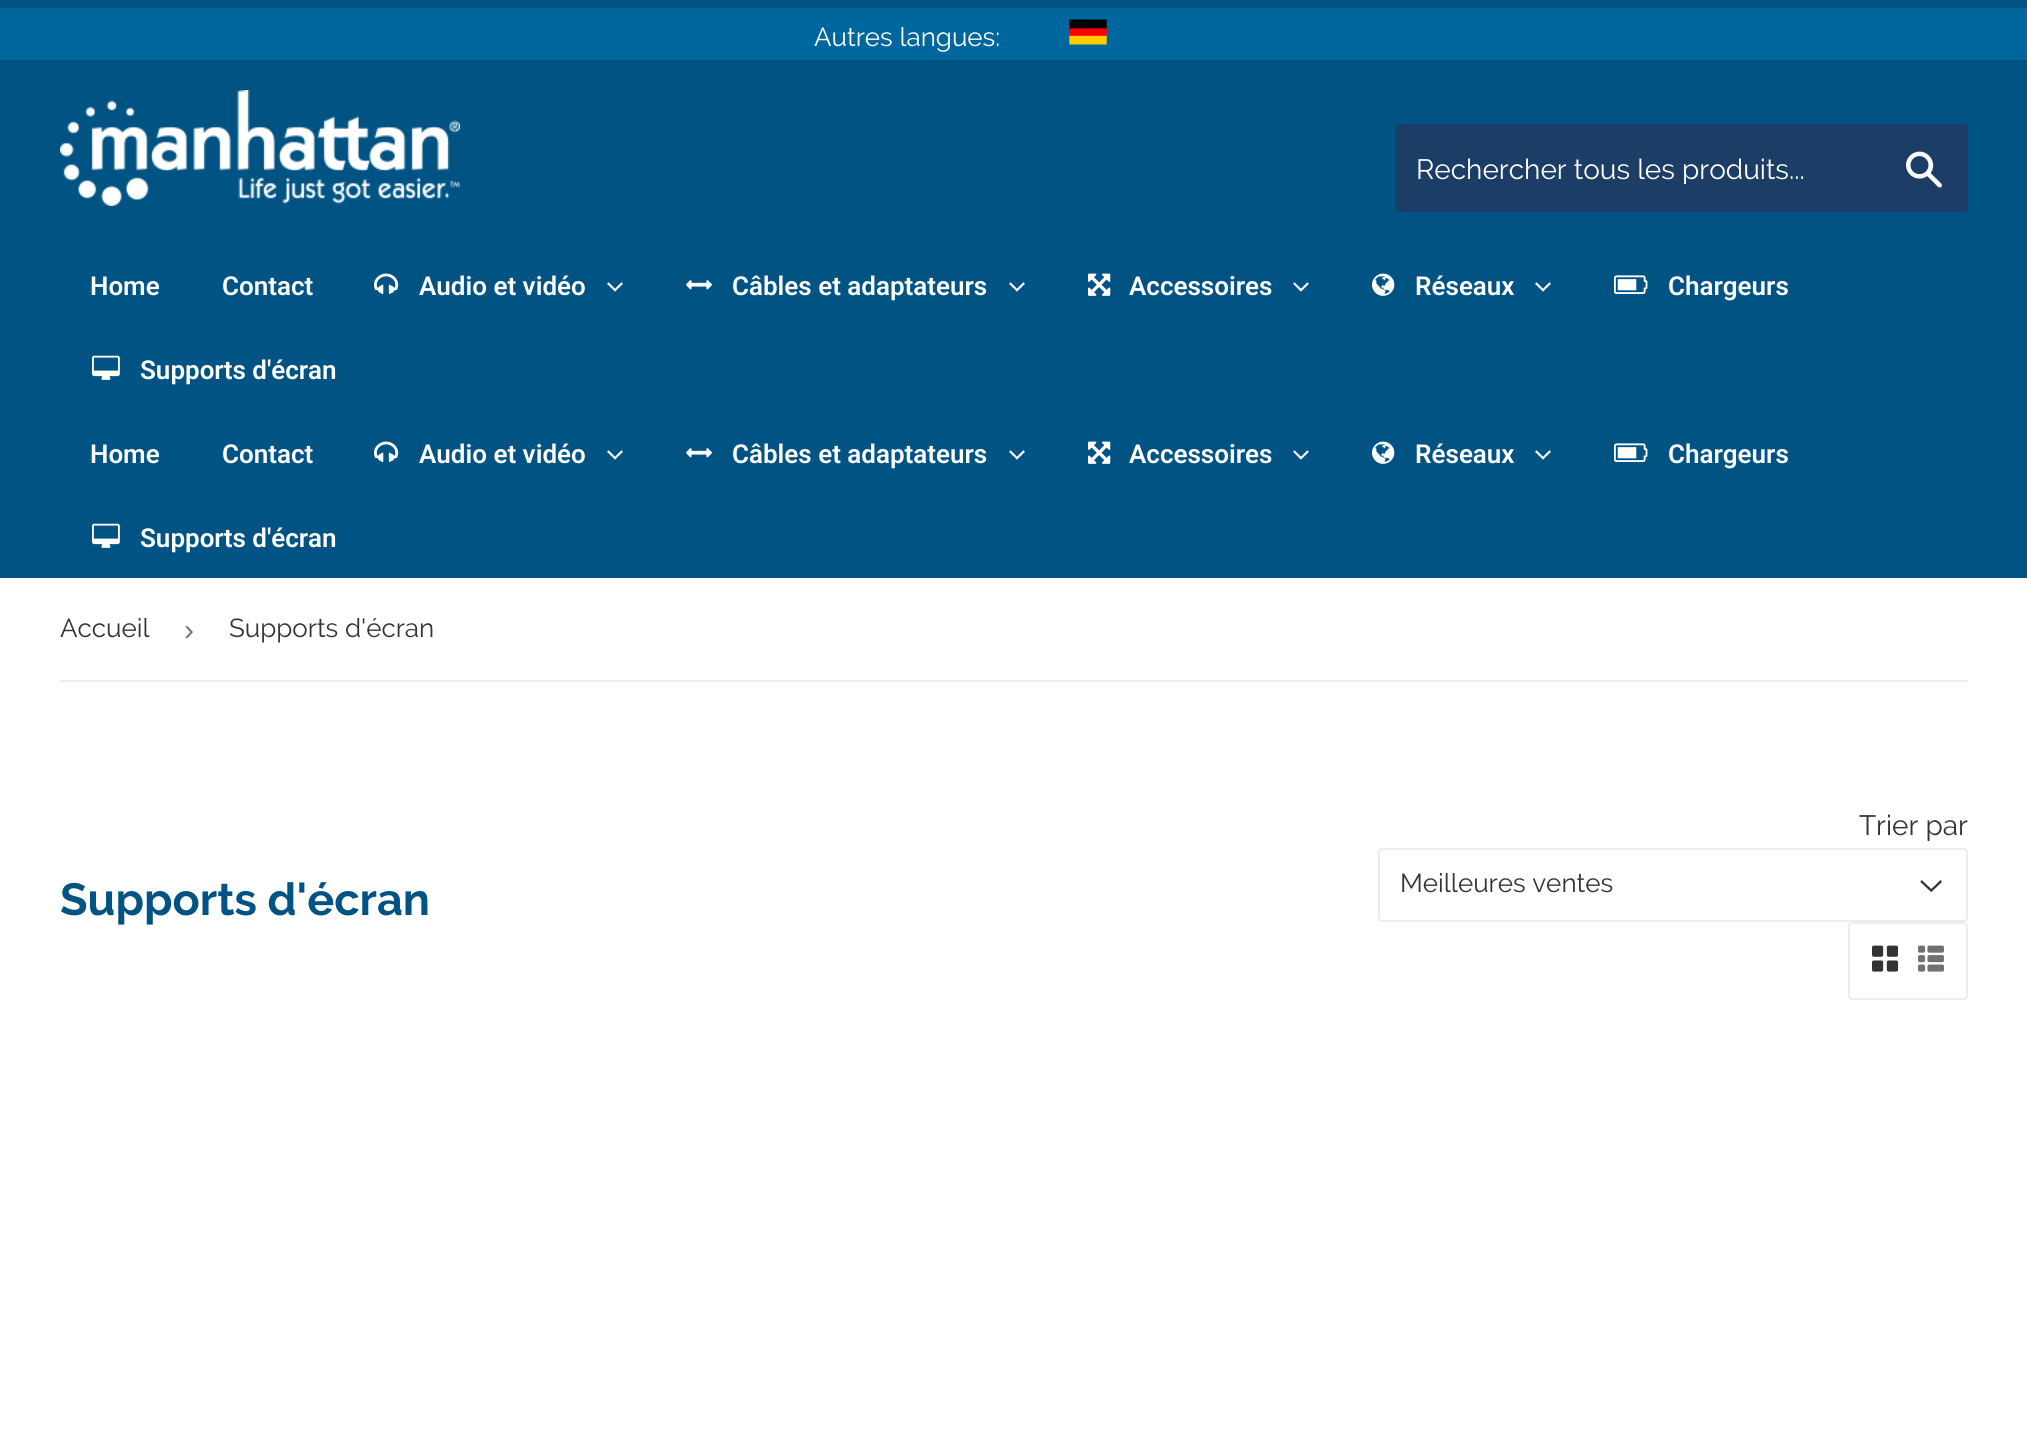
import math
import cairo

surface = cairo.ImageSurface(cairo.FORMAT_RGB24, 2027, 1449)
ctx = cairo.Context(surface)
options = cairo.FontOptions()
options.set_hint_metrics(cairo.HINT_METRICS_OFF)
options.set_hint_style(cairo.HINT_STYLE_NONE)
ctx.set_font_options(options)
ctx.set_miter_limit(4)


def round_rect(x, y, w, h, r):
    ctx.new_sub_path()
    for i, (u, v) in enumerate([(x + w - r, y + h - r), (x + r, y + h - r), (x + r, y + r), (x + w - r, y + r)]):
        ctx.arc(u, v, r, i * math.pi / 2, (i + 1) * math.pi / 2)
    ctx.close_path()


def picture(path, x, y, w, h):
    ctx.save()
    ctx.set_source_surface(cairo.ImageSurface.create_from_png(path), x, y)
    ctx.rectangle(x, y, w, h)
    ctx.fill()
    ctx.restore()


ctx.set_source_rgb(1, 1, 1)
ctx.paint()
ctx.set_source_rgb(0, 0.325, 0.514)
ctx.rectangle(0, 0, 2027, 578)
ctx.fill()
ctx.set_source_rgb(0, 0.4, 0.62)
ctx.rectangle(0, 8, 2027, 52)
ctx.fill()
ctx.select_font_face("Raleway")
ctx.set_font_size(26)
ctx.set_source_rgb(1, 1, 1)
ctx.move_to(814, 46)
ctx.show_text("Autres langues:")
picture("img1.png", 1069, 19, 38, 26)
picture("img2.png", 60, 90, 400, 116)
ctx.set_source_rgb(0.11, 0.239, 0.4)
round_rect(1396, 124, 572, 88, 4)
ctx.fill()
ctx.save()
ctx.rectangle(1416, 152, 454, 32)
ctx.clip()
ctx.set_font_size(28)
ctx.set_source_rgb(1, 1, 1)
ctx.move_to(1416, 179)
ctx.show_text("Rechercher tous les produits...")
ctx.restore()
picture("img3.png", 1906, 151, 36, 37)
ctx.select_font_face("Roboto SemiBold")
ctx.set_source_rgb(1, 1, 1)
ctx.move_to(90, 295)
ctx.show_text("Home")
ctx.move_to(222, 295)
ctx.show_text("Contact")
picture("img4.png", 374, 273, 25, 21)
ctx.move_to(419, 295)
ctx.show_text("Audio et vidéo")
picture("img5.png", 607, 282, 16, 10)
picture("img6.png", 686, 280, 26, 10)
ctx.move_to(732, 295)
ctx.show_text("Câbles et adaptateurs")
picture("img5.png", 1009, 282, 16, 10)
picture("img7.png", 1088, 273, 23, 23)
ctx.move_to(1129, 295)
ctx.show_text("Accessoires")
picture("img5.png", 1293, 282, 16, 10)
picture("img8.png", 1372, 273, 23, 23)
ctx.move_to(1415, 295)
ctx.show_text("Réseaux")
picture("img5.png", 1535, 282, 16, 10)
picture("img9.png", 1614, 275, 34, 19)
ctx.move_to(1668, 295)
ctx.show_text("Chargeurs")
picture("img10.png", 92, 355, 28, 25)
ctx.move_to(140, 379)
ctx.show_text("Supports d'écran")
ctx.move_to(90, 463)
ctx.show_text("Home")
ctx.move_to(222, 463)
ctx.show_text("Contact")
picture("img4.png", 374, 441, 25, 21)
ctx.move_to(419, 463)
ctx.show_text("Audio et vidéo")
picture("img5.png", 607, 450, 16, 10)
picture("img6.png", 686, 448, 26, 10)
ctx.move_to(732, 463)
ctx.show_text("Câbles et adaptateurs")
picture("img5.png", 1009, 450, 16, 10)
picture("img7.png", 1088, 441, 23, 23)
ctx.move_to(1129, 463)
ctx.show_text("Accessoires")
picture("img5.png", 1293, 450, 16, 10)
picture("img8.png", 1372, 441, 23, 23)
ctx.move_to(1415, 463)
ctx.show_text("Réseaux")
picture("img5.png", 1535, 450, 16, 10)
picture("img9.png", 1614, 443, 34, 19)
ctx.move_to(1668, 463)
ctx.show_text("Chargeurs")
picture("img10.png", 92, 523, 28, 25)
ctx.move_to(140, 547)
ctx.show_text("Supports d'écran")
ctx.set_source_rgb(0.925, 0.925, 0.925)
ctx.rectangle(60, 680, 1908, 2)
ctx.fill()
ctx.select_font_face("Raleway")
ctx.set_source_rgb(0.2, 0.2, 0.2)
ctx.move_to(60, 637)
ctx.show_text("Accueil")
ctx.select_font_face("Liberation Sans")
ctx.set_font_size(30)
ctx.set_source_rgb(0.463, 0.463, 0.463)
ctx.move_to(184, 640)
ctx.show_text("›")
ctx.select_font_face("Raleway")
ctx.set_font_size(26)
ctx.set_source_rgb(0.2, 0.2, 0.2)
ctx.move_to(229, 637)
ctx.show_text("Supports d'écran")
ctx.set_font_size(28)
ctx.move_to(1859, 835)
ctx.show_text("Trier par")
picture("img11.png", 1920, 880, 22, 12)
round_rect(1379, 849, 588, 72, 3)
ctx.set_source_rgb(0.925, 0.925, 0.925)
ctx.stroke()
ctx.set_font_size(26)
ctx.set_source_rgb(0.2, 0.2, 0.2)
ctx.move_to(1400, 892)
ctx.show_text("Meilleures ventes")
round_rect(1849, 923, 118, 76, 3)
ctx.set_source_rgb(0.925, 0.925, 0.925)
ctx.stroke()
picture("img12.png", 1872, 945, 26, 27)
picture("img13.png", 1918, 945, 26, 27)
ctx.select_font_face("Raleway", cairo.FONT_SLANT_NORMAL, cairo.FONT_WEIGHT_BOLD)
ctx.set_font_size(45)
ctx.set_source_rgb(0, 0.325, 0.514)
ctx.move_to(60, 915)
ctx.show_text("Supports d'écran")
surface.write_to_png("page.png")
